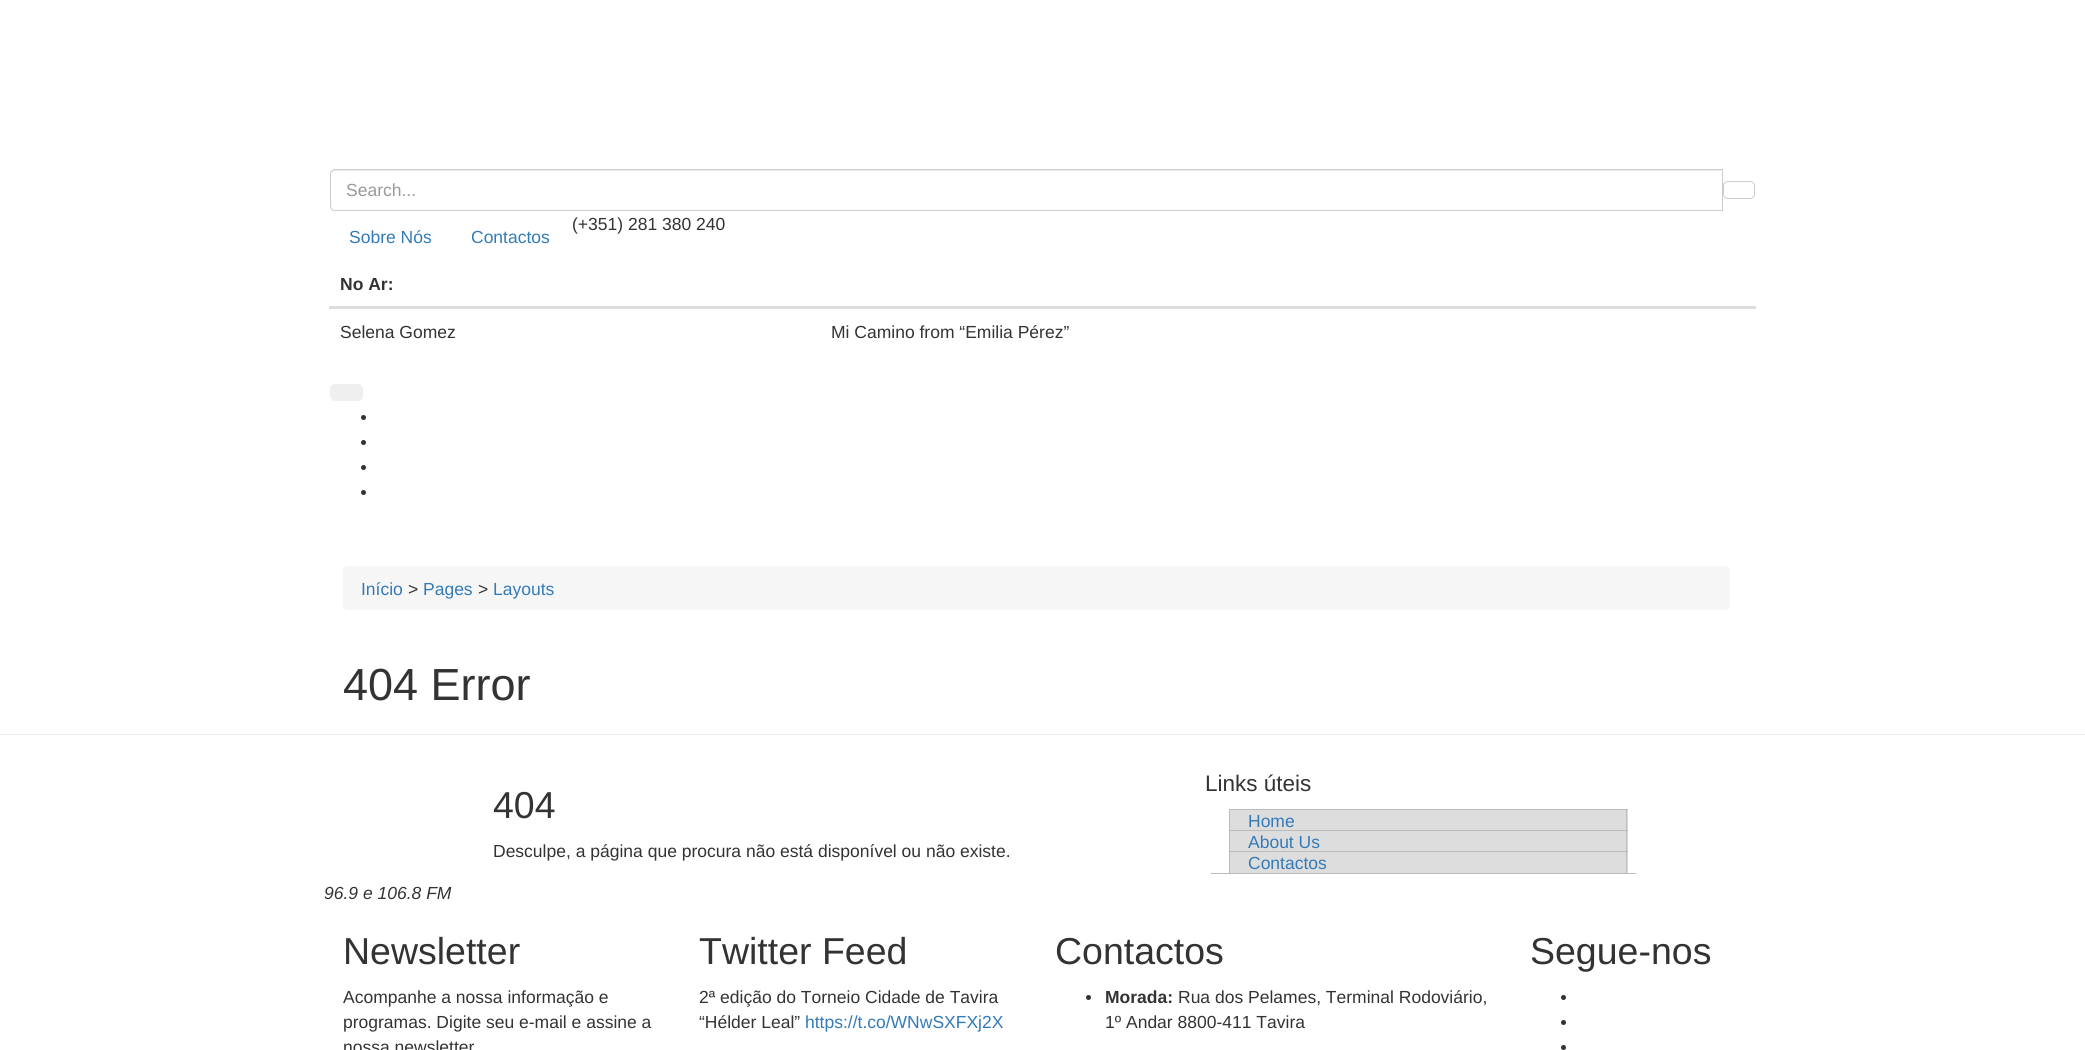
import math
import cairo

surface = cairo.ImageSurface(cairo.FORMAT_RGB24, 2085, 1050)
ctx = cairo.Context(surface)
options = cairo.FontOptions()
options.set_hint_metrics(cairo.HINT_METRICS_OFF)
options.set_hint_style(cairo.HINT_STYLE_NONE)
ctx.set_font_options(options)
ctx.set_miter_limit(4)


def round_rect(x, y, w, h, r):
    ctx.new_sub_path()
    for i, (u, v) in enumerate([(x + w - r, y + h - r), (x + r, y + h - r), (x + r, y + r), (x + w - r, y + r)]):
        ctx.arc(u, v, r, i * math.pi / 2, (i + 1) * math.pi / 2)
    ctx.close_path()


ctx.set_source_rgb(1, 1, 1)
ctx.paint()
ctx.set_source_rgb(0.925, 0.925, 0.925)
ctx.new_path()
ctx.move_to(335, 171)
ctx.line_to(1721, 171)
ctx.line_to(1721, 170)
ctx.line_to(335, 170)
ctx.curve_to(332, 170, 331, 172, 331, 175)
ctx.curve_to(331, 173, 333, 171, 335, 171)
ctx.close_path()
ctx.fill()
ctx.new_path()
ctx.move_to(335, 169.5)
ctx.line_to(1722.5, 169.5)
ctx.line_to(1722.5, 210.5)
ctx.line_to(335, 210.5)
ctx.curve_to(332.5, 210.5, 330.5, 208.5, 330.5, 206)
ctx.line_to(330.5, 174)
ctx.curve_to(330.5, 171.5, 332.5, 169.5, 335, 169.5)
ctx.close_path()
ctx.set_source_rgb(0.8, 0.8, 0.8)
ctx.set_line_width(1)
ctx.stroke()
ctx.select_font_face("Liberation Sans")
ctx.set_font_size(17.5)
ctx.set_source_rgb(0.6, 0.6, 0.6)
ctx.move_to(346, 196)
ctx.show_text("Search...")
round_rect(1723.5, 181.5, 31, 17, 4.5)
ctx.set_source_rgb(0.8, 0.8, 0.8)
ctx.stroke()
ctx.set_source_rgb(0.2, 0.2, 0.2)
ctx.move_to(572, 230)
ctx.show_text("(+351) 281 380 240")
ctx.set_source_rgb(0.2, 0.478, 0.718)
ctx.move_to(349, 243)
ctx.show_text("Sobre Nós")
ctx.move_to(471, 243)
ctx.show_text("Contactos")
ctx.select_font_face("Liberation Sans", cairo.FONT_SLANT_NORMAL, cairo.FONT_WEIGHT_BOLD)
ctx.set_source_rgb(0.2, 0.2, 0.2)
ctx.move_to(340, 290)
ctx.show_text("No Ar:")
ctx.set_source_rgb(0.867, 0.867, 0.867)
ctx.rectangle(329, 306, 1427, 3)
ctx.fill()
ctx.select_font_face("Liberation Sans")
ctx.set_source_rgb(0.2, 0.2, 0.2)
ctx.move_to(340, 338)
ctx.show_text("Selena Gomez")
ctx.move_to(831, 338)
ctx.show_text("Mi Camino from “Emilia Pérez”")
ctx.set_source_rgb(0.937, 0.937, 0.937)
round_rect(330, 384, 33, 17, 5)
ctx.fill()
ctx.set_source_rgb(0.2, 0.2, 0.2)
ctx.arc(363.5, 417.5, 2.5, 0, 2 * math.pi)
ctx.fill()
ctx.arc(363.5, 442.5, 2.5, 0, 2 * math.pi)
ctx.fill()
ctx.arc(363.5, 467.5, 2.5, 0, 2 * math.pi)
ctx.fill()
ctx.arc(363.5, 492.5, 2.5, 0, 2 * math.pi)
ctx.fill()
ctx.set_source_rgb(0.933, 0.933, 0.933)
ctx.rectangle(0, 734, 2085, 1)
ctx.fill()
ctx.set_source_rgb(0.961, 0.961, 0.961)
round_rect(343, 566, 1387, 44, 5)
ctx.fill()
ctx.set_source_rgb(0.2, 0.478, 0.718)
ctx.move_to(361, 595)
ctx.show_text("Início")
ctx.set_source_rgb(0.2, 0.2, 0.2)
ctx.move_to(408, 595)
ctx.show_text(">")
ctx.set_source_rgb(0.2, 0.478, 0.718)
ctx.move_to(423, 595)
ctx.show_text("Pages")
ctx.set_source_rgb(0.2, 0.2, 0.2)
ctx.move_to(478, 595)
ctx.show_text(">")
ctx.set_source_rgb(0.2, 0.478, 0.718)
ctx.move_to(493, 595)
ctx.show_text("Layouts")
ctx.set_font_size(45)
ctx.set_source_rgb(0.2, 0.2, 0.2)
ctx.move_to(343, 700)
ctx.show_text("404 Error")
ctx.set_font_size(37.5)
ctx.move_to(493, 818)
ctx.show_text("404")
ctx.set_font_size(17.5)
ctx.move_to(493, 857)
ctx.show_text("Desculpe, a página que procura não está disponível ou não existe.")
ctx.set_font_size(22.5)
ctx.move_to(1205, 791)
ctx.show_text("Links úteis")
ctx.set_source_rgb(0.733, 0.733, 0.733)
ctx.rectangle(1211, 873, 425, 1)
ctx.fill()
ctx.set_source_rgb(0.867, 0.867, 0.867)
ctx.rectangle(1230, 810, 398, 20)
ctx.fill()
ctx.set_source_rgb(0.733, 0.733, 0.733)
ctx.rectangle(1229, 809, 399, 1)
ctx.fill()
ctx.rectangle(1626, 809, 1, 21)
ctx.fill()
ctx.rectangle(1229, 809, 1, 21)
ctx.fill()
ctx.set_font_size(17.5)
ctx.set_source_rgb(0.2, 0.478, 0.718)
ctx.move_to(1248, 827)
ctx.show_text("Home")
ctx.set_source_rgb(0.867, 0.867, 0.867)
ctx.rectangle(1230, 831, 398, 20)
ctx.fill()
ctx.set_source_rgb(0.733, 0.733, 0.733)
ctx.rectangle(1229, 830, 399, 1)
ctx.fill()
ctx.rectangle(1626, 830, 1, 21)
ctx.fill()
ctx.rectangle(1229, 830, 1, 21)
ctx.fill()
ctx.set_source_rgb(0.2, 0.478, 0.718)
ctx.move_to(1248, 848)
ctx.show_text("About Us")
ctx.set_source_rgb(0.867, 0.867, 0.867)
ctx.rectangle(1230, 852, 398, 21)
ctx.fill()
ctx.set_source_rgb(0.733, 0.733, 0.733)
ctx.rectangle(1229, 851, 399, 1)
ctx.fill()
ctx.rectangle(1626, 851, 1, 22)
ctx.fill()
ctx.rectangle(1229, 851, 1, 22)
ctx.fill()
ctx.set_source_rgb(0.2, 0.478, 0.718)
ctx.move_to(1248, 869)
ctx.show_text("Contactos")
ctx.select_font_face("Liberation Sans", cairo.FONT_SLANT_ITALIC)
ctx.set_source_rgb(0.2, 0.2, 0.2)
ctx.move_to(324, 899)
ctx.show_text("96.9 e 106.8 FM")
ctx.select_font_face("Liberation Sans")
ctx.set_font_size(37.5)
ctx.move_to(343, 964)
ctx.show_text("Newsletter")
ctx.set_font_size(17.5)
ctx.move_to(343, 1003)
ctx.show_text("Acompanhe a nossa informação e")
ctx.move_to(343, 1028)
ctx.show_text("programas. Digite seu e-mail e assine a")
ctx.move_to(343, 1053)
ctx.show_text("nossa newsletter")
ctx.set_font_size(37.5)
ctx.move_to(699, 964)
ctx.show_text("Twitter Feed")
ctx.set_font_size(17.5)
ctx.move_to(699, 1003)
ctx.show_text("2ª edição do Torneio Cidade de Tavira")
ctx.move_to(699, 1028)
ctx.show_text("“Hélder Leal”")
ctx.set_source_rgb(0.2, 0.478, 0.718)
ctx.move_to(805, 1028)
ctx.show_text("https://t.co/WNwSXFXj2X")
ctx.set_font_size(37.5)
ctx.set_source_rgb(0.2, 0.2, 0.2)
ctx.move_to(1055, 964)
ctx.show_text("Contactos")
ctx.new_path()
ctx.arc(1088.5, 997.5, 2.5, 0, 2 * math.pi)
ctx.fill()
ctx.select_font_face("Liberation Sans", cairo.FONT_SLANT_NORMAL, cairo.FONT_WEIGHT_BOLD)
ctx.set_font_size(17.5)
ctx.move_to(1105, 1003)
ctx.show_text("Morada:")
ctx.select_font_face("Liberation Sans")
ctx.move_to(1178, 1003)
ctx.show_text("Rua dos Pelames, Terminal Rodoviário,")
ctx.move_to(1105, 1028)
ctx.show_text("1º Andar 8800-411 Tavira")
ctx.set_font_size(37.5)
ctx.move_to(1530, 964)
ctx.show_text("Segue-nos")
ctx.new_path()
ctx.arc(1563.5, 997.5, 2.5, 0, 2 * math.pi)
ctx.fill()
ctx.arc(1563.5, 1022.5, 2.5, 0, 2 * math.pi)
ctx.fill()
ctx.arc(1563.5, 1047.5, 2.5, 0, 2 * math.pi)
ctx.fill()
surface.write_to_png("page.png")
